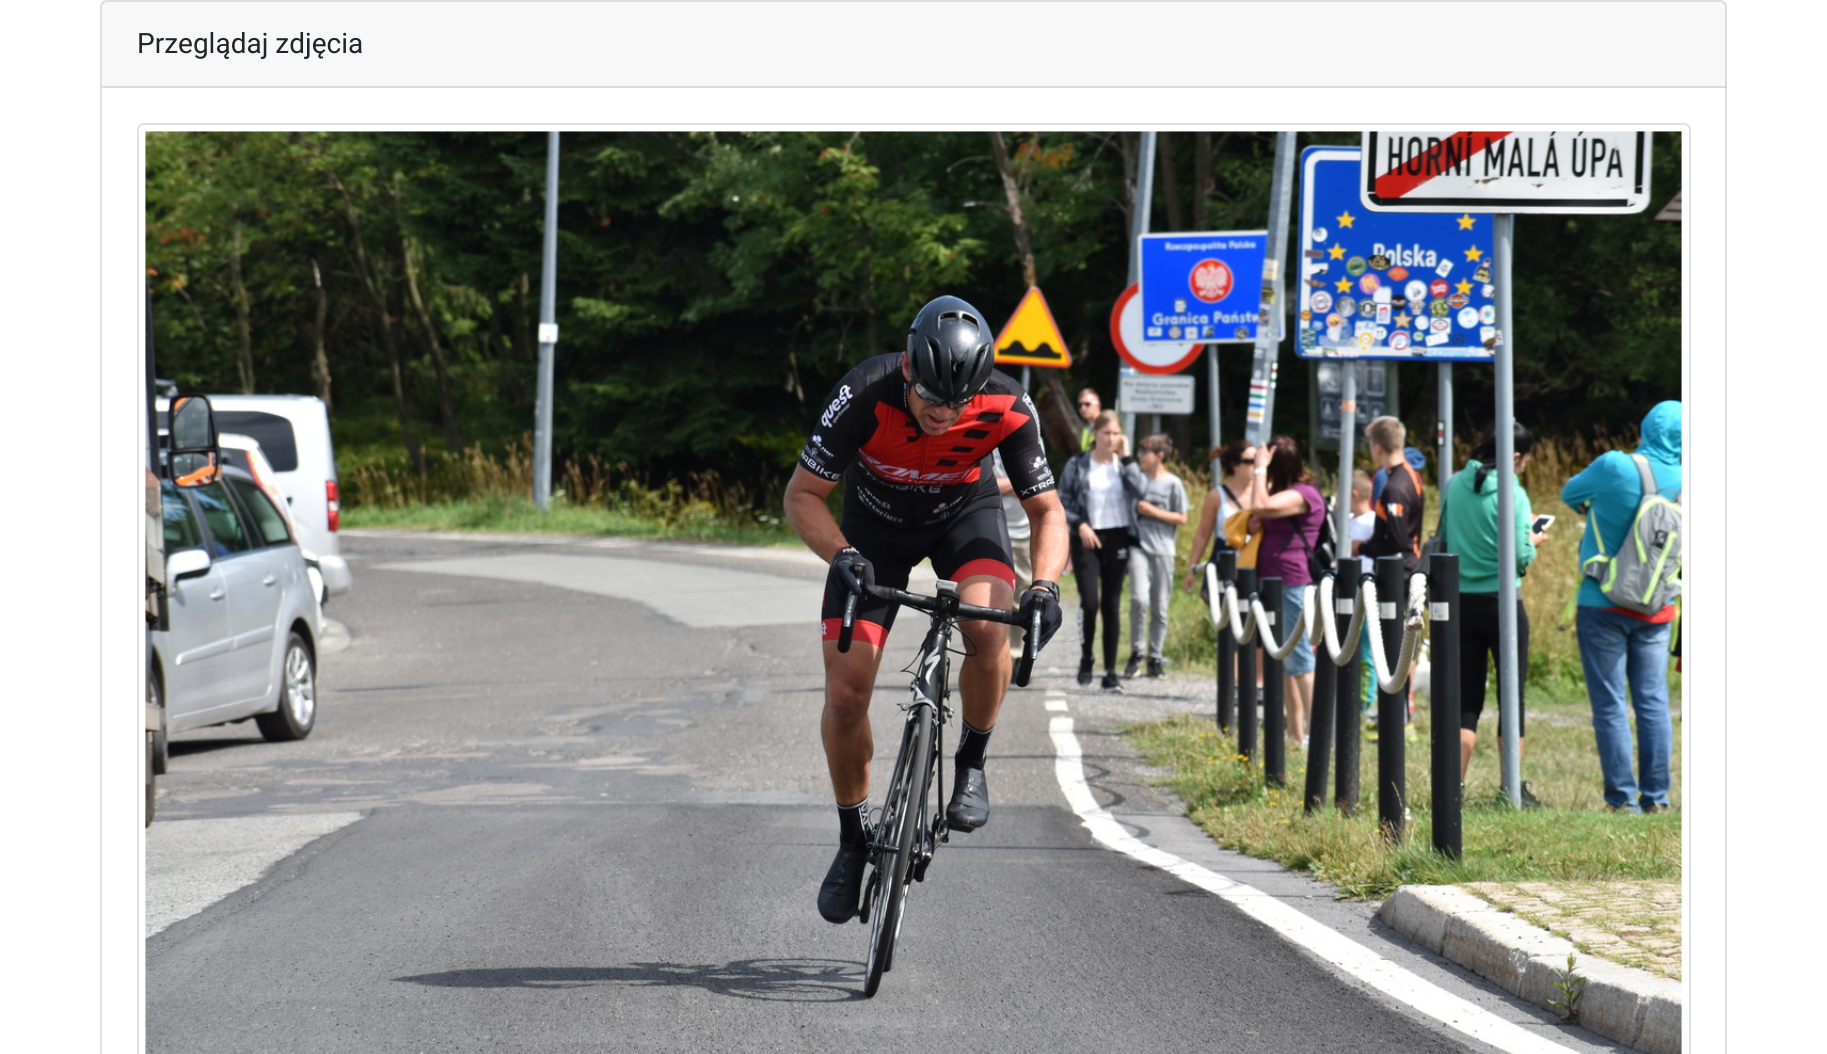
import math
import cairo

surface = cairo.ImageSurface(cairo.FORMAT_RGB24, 1827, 1054)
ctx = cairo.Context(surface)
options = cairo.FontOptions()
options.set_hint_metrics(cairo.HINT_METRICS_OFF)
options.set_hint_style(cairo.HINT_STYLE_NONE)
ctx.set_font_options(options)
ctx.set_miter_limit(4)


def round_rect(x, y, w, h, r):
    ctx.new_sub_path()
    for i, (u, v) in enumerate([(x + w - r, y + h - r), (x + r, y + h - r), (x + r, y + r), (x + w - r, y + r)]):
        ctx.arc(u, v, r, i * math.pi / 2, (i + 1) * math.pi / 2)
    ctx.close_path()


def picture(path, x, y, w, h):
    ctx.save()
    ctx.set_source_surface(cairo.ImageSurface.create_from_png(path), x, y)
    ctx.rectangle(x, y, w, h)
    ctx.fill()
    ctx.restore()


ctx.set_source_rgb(1, 1, 1)
ctx.paint()
round_rect(101, 1, 1625, 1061, 6)
ctx.set_source_rgb(0.875, 0.875, 0.875)
ctx.stroke()
ctx.set_source_rgba(0, 0, 0, 0.03)
ctx.rectangle(102, 2, 1624, 86)
ctx.fill()
ctx.set_source_rgba(0, 0, 0, 0.12)
ctx.rectangle(102, 86, 1624, 2)
ctx.fill()
ctx.select_font_face("Roboto")
ctx.set_font_size(28)
ctx.set_source_rgb(0.129, 0.145, 0.161)
ctx.move_to(137, 53)
ctx.show_text("Przeglądaj zdjęcia")
round_rect(138, 124, 1552, 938, 6)
ctx.set_source_rgb(0.871, 0.886, 0.902)
ctx.stroke()
picture("img1.png", 145, 131, 1537, 923)
surface.write_to_png("page.png")
